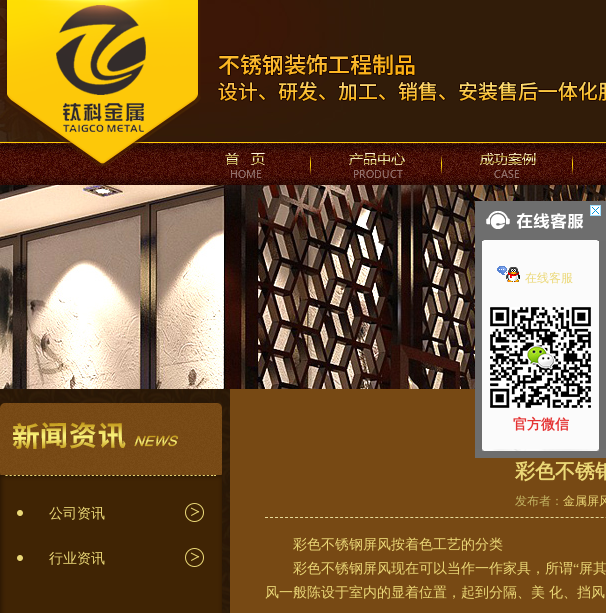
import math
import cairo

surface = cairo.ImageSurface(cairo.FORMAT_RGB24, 606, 613)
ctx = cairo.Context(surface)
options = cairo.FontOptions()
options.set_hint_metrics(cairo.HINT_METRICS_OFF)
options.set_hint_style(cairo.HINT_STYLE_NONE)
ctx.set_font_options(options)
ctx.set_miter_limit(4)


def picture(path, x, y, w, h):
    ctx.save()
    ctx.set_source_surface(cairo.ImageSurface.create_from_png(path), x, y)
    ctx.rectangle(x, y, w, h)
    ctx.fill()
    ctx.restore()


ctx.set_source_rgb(1, 1, 1)
ctx.paint()
picture("img1.png", 0, 0, 606, 142)
picture("img4.png", 0, 142, 606, 43)
picture("img2.png", 4, 0, 197, 168)
picture("img3.png", 217, 53, 389, 49)
picture("img5.png", 310, 155, 1, 20)
picture("img6.png", 225, 153, 40, 25)
picture("img7.png", 441, 155, 1, 20)
picture("img8.png", 349, 153, 56, 25)
picture("img9.png", 572, 155, 1, 20)
picture("img10.png", 480, 153, 56, 25)
picture("img11.png", 0, 185, 606, 204)
picture("img12.png", 475, 201, 131, 40)
picture("img13.png", 590, 205, 11, 11)
ctx.set_source_rgb(0.467, 0.286, 0.082)
ctx.rectangle(230, 389, 376, 224)
ctx.fill()
ctx.set_source_rgb(0.984, 0.984, 0.984)
ctx.rectangle(482, 241, 117, 208)
ctx.fill()
ctx.set_source_rgb(0.427, 0.427, 0.427)
ctx.rectangle(599, 241, 7, 208)
ctx.fill()
ctx.rectangle(475, 241, 7, 208)
ctx.fill()
picture("img14.png", 497, 266, 23, 16)
ctx.select_font_face("WenQuanYi Zen Hei Medium")
ctx.set_font_size(12)
ctx.set_source_rgb(0.918, 0.847, 0.467)
ctx.move_to(525, 282)
ctx.show_text("在线客服")
picture("img15.png", 490, 307, 101, 101)
ctx.select_font_face("WenQuanYi Zen Hei", cairo.FONT_SLANT_NORMAL, cairo.FONT_WEIGHT_BOLD)
ctx.set_font_size(14)
ctx.set_source_rgb(0.898, 0.2, 0.2)
ctx.move_to(513, 429)
ctx.show_text("官方微信")
picture("img16.png", 475, 449, 131, 9)
picture("img17.png", 0, 389, 230, 224)
picture("img18.png", 0, 403, 222, 88)
picture("img19.png", 0, 491, 222, 120)
picture("img20.png", 17, 503, 187, 19)
ctx.select_font_face("WenQuanYi Zen Hei Medium")
ctx.set_source_rgb(0.918, 0.847, 0.467)
ctx.move_to(49, 518)
ctx.show_text("公司资讯")
picture("img20.png", 17, 548, 187, 19)
ctx.move_to(49, 563)
ctx.show_text("行业资讯")
picture("img21.png", 0, 611, 222, 2)
ctx.new_path()
ctx.move_to(265, 517.5)
ctx.line_to(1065, 517.5)
ctx.set_source_rgb(0.902, 0.855, 0.6)
ctx.set_line_width(1)
ctx.set_dash([3, 2.01])
ctx.stroke()
ctx.select_font_face("WenQuanYi Zen Hei", cairo.FONT_SLANT_NORMAL, cairo.FONT_WEIGHT_BOLD)
ctx.set_font_size(20)
ctx.set_source_rgb(0.918, 0.847, 0.467)
ctx.move_to(515, 478)
ctx.show_text("彩色不锈钢")
ctx.select_font_face("WenQuanYi Zen Hei Medium")
ctx.set_font_size(12)
ctx.set_source_rgb(0.765, 0.706, 0.388)
ctx.move_to(515, 505)
ctx.show_text("发布者：")
ctx.set_source_rgb(0.918, 0.847, 0.467)
ctx.move_to(563, 505)
ctx.show_text("金属屏风")
ctx.set_font_size(14)
ctx.move_to(293, 549)
ctx.show_text("彩色不锈钢屏风按着色工艺的分类")
ctx.move_to(293, 573)
ctx.show_text("彩色不锈钢屏风现在可以当作一作家具，所谓")
ctx.select_font_face("Liberation Serif")
ctx.move_to(573, 573)
ctx.show_text("“")
ctx.select_font_face("WenQuanYi Zen Hei Medium")
ctx.move_to(579, 573)
ctx.show_text("屏其")
ctx.move_to(265, 597)
ctx.show_text("风一般陈设于室内的显着位置，起到分隔、美")
ctx.move_to(549, 597)
ctx.show_text("化、挡风")
surface.write_to_png("page.png")
